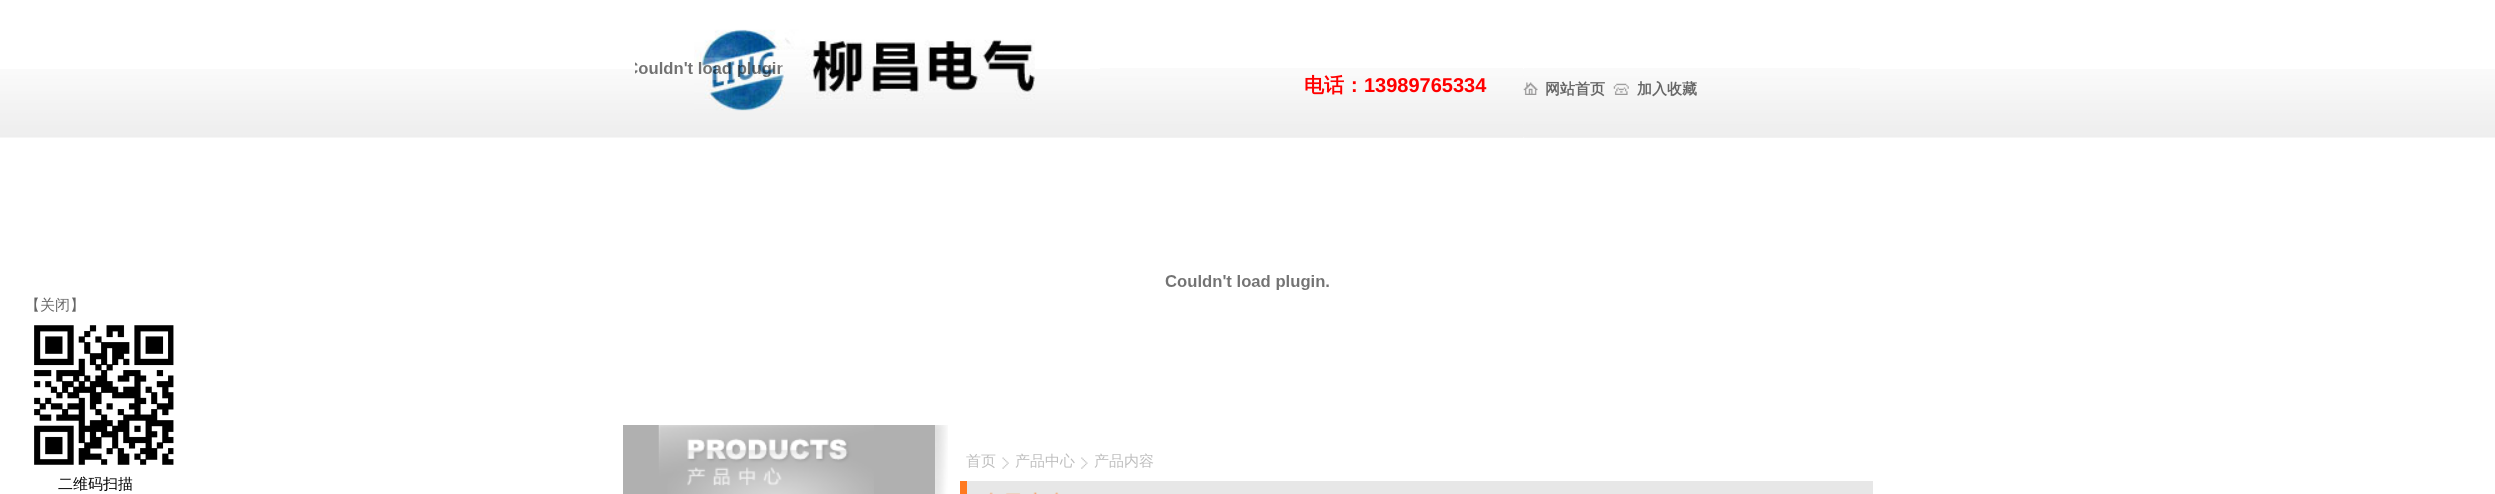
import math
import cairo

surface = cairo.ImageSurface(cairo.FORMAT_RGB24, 2495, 494)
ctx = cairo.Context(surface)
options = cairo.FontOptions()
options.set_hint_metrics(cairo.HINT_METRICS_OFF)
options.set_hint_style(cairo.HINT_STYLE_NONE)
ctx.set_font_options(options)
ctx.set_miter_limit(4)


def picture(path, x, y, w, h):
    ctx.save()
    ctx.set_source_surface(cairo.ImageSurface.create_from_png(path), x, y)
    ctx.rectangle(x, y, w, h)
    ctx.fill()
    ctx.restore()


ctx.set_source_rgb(1, 1, 1)
ctx.paint()
picture("img1.png", 0, 69, 2495, 69)
picture("img2.png", 694, 29, 341, 82)
picture("img3.png", 635, 57, 148, 23)
picture("img4.png", 1100, 68, 423, 70)
ctx.select_font_face("WenQuanYi Zen Hei", cairo.FONT_SLANT_NORMAL, cairo.FONT_WEIGHT_BOLD)
ctx.set_font_size(20)
ctx.set_source_rgb(1, 0, 0)
ctx.move_to(1304, 92)
ctx.show_text("电话：")
ctx.select_font_face("Liberation Sans", cairo.FONT_SLANT_NORMAL, cairo.FONT_WEIGHT_BOLD)
ctx.move_to(1364, 92)
ctx.show_text("13989765334")
picture("img5.png", 1524, 68, 336, 70)
picture("img6.png", 1523, 82, 15, 13)
ctx.select_font_face("WenQuanYi Zen Hei", cairo.FONT_SLANT_NORMAL, cairo.FONT_WEIGHT_BOLD)
ctx.set_font_size(15)
ctx.set_source_rgb(0.404, 0.404, 0.404)
ctx.move_to(1545, 94)
ctx.show_text("网站首页")
picture("img7.png", 1613, 83, 16, 12)
ctx.move_to(1637, 94)
ctx.show_text("加入收藏")
picture("img8.png", 1165, 275, 164, 15)
ctx.select_font_face("WenQuanYi Zen Hei Medium")
ctx.move_to(25, 310)
ctx.show_text("【关闭】")
picture("img9.png", 34, 325, 140, 140)
ctx.set_source_rgb(0, 0, 0)
ctx.move_to(58, 489)
ctx.show_text("二维码扫描")
ctx.set_source_rgb(0.69, 0.69, 0.69)
ctx.rectangle(623, 425, 312, 69)
ctx.fill()
picture("img10.png", 658, 425, 216, 69)
picture("img11.png", 935, 425, 13, 69)
ctx.set_source_rgb(0.741, 0.741, 0.741)
ctx.move_to(966, 466)
ctx.show_text("首页")
picture("img12.png", 1002, 457, 7, 12)
ctx.move_to(1015, 466)
ctx.show_text("产品中心")
picture("img13.png", 1081, 457, 7, 12)
ctx.move_to(1094, 466)
ctx.show_text("产品内容")
ctx.set_source_rgb(0.906, 0.906, 0.906)
ctx.rectangle(967, 481, 906, 13)
ctx.fill()
ctx.set_source_rgb(1, 0.478, 0.125)
ctx.rectangle(960, 481, 7, 13)
ctx.fill()
picture("img14.png", 989, 492, 70, 2)
surface.write_to_png("page.png")
